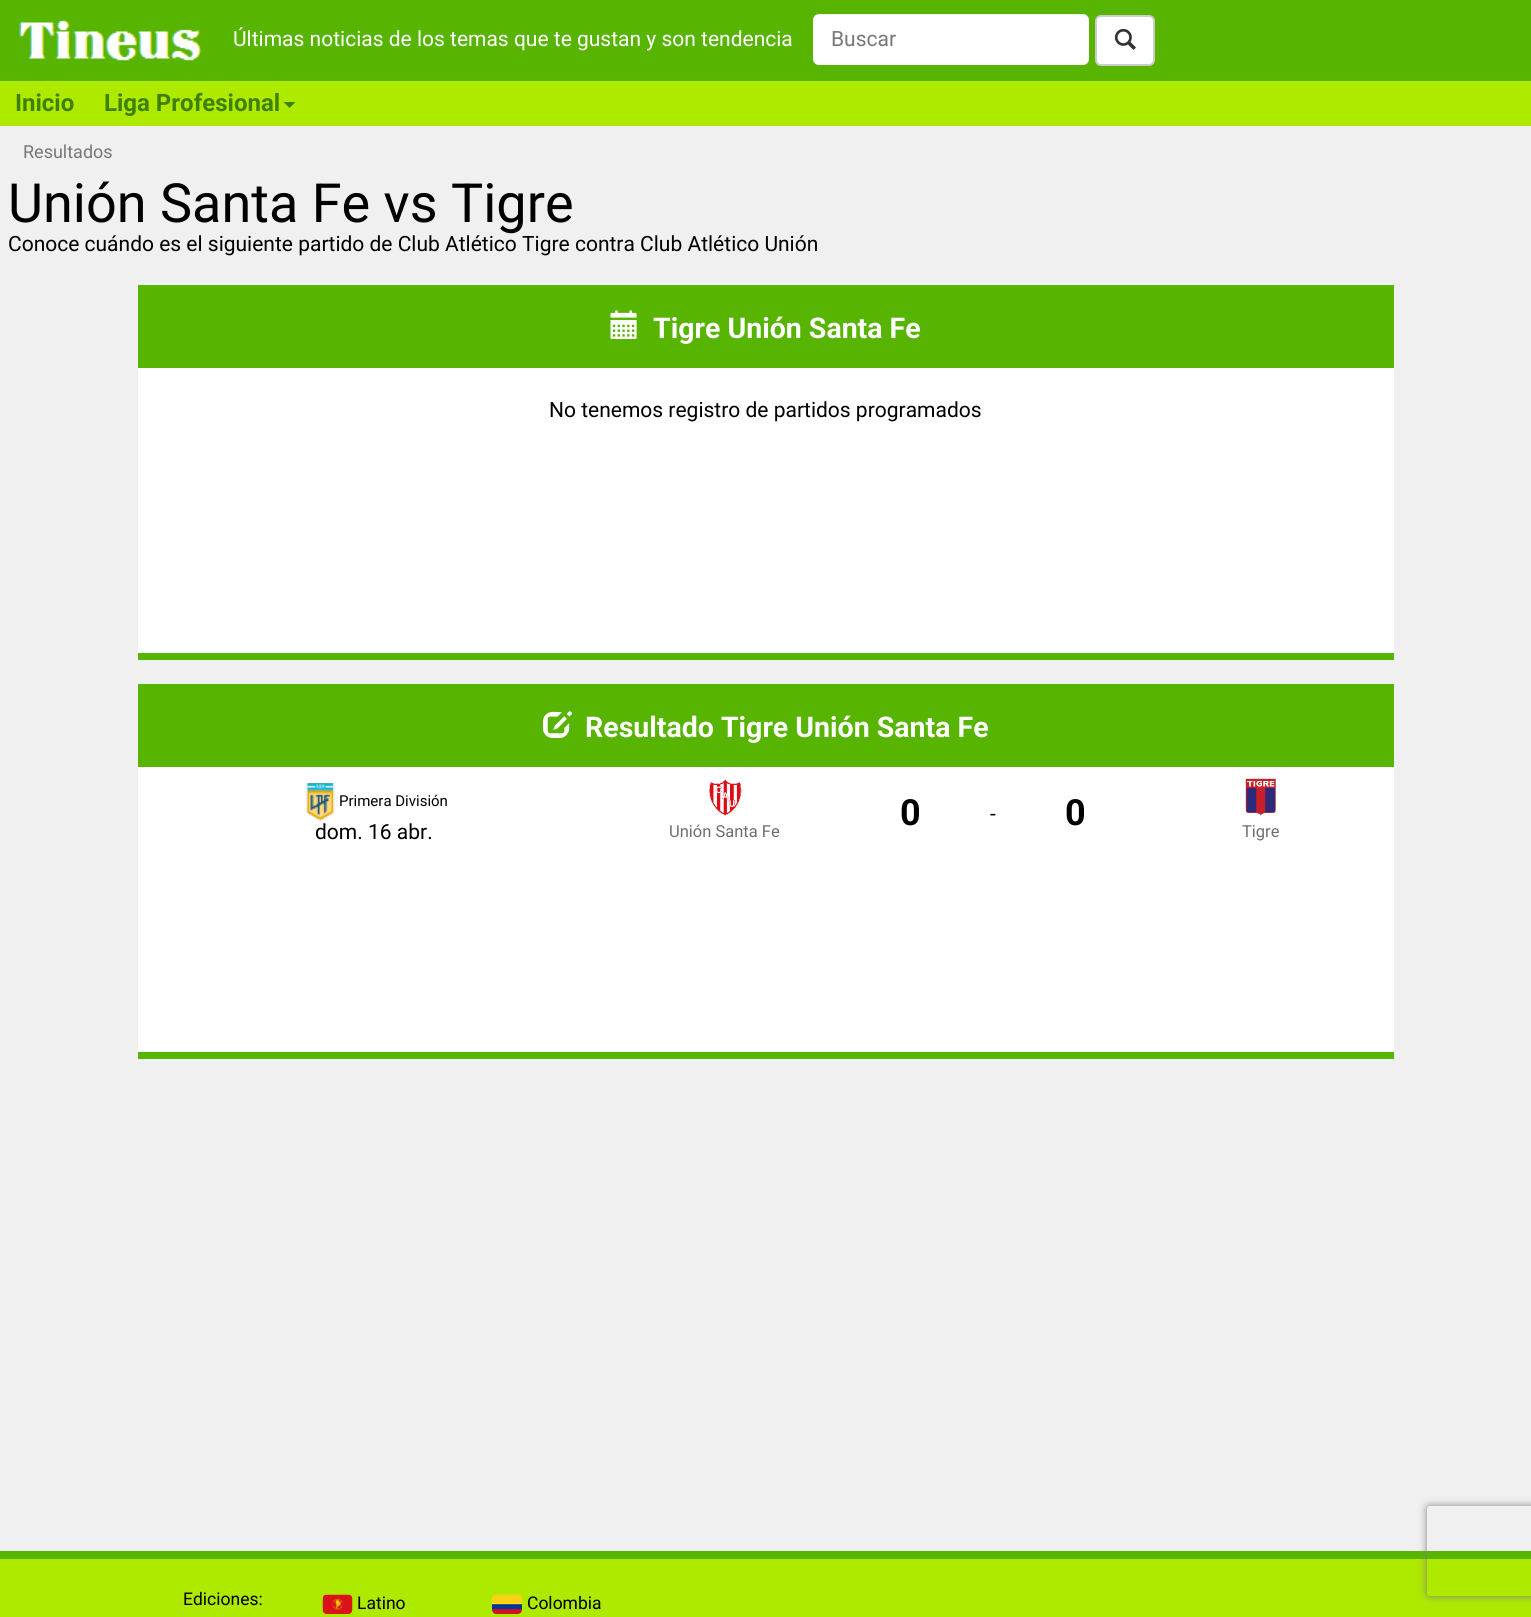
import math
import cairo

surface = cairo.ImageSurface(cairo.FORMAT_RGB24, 1531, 1617)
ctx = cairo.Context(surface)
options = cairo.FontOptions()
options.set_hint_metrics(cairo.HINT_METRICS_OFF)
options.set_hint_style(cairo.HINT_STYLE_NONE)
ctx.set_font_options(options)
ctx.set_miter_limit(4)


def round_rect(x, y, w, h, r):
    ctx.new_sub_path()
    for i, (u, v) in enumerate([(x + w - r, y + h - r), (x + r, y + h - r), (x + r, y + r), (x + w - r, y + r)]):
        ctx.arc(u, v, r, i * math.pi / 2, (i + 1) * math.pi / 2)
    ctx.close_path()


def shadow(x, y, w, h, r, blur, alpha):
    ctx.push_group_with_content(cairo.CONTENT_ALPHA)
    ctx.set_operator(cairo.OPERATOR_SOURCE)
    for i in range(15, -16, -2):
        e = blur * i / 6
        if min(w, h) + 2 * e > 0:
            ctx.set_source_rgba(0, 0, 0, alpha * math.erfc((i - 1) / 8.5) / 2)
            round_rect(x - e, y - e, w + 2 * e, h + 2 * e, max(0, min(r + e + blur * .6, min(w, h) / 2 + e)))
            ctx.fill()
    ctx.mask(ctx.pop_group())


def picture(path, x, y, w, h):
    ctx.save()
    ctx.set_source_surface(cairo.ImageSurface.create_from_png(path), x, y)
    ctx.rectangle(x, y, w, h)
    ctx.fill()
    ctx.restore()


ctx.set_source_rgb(0.941, 0.941, 0.941)
ctx.paint()
ctx.set_source_rgb(0.341, 0.706, 0)
ctx.rectangle(0, 0, 1531, 81)
ctx.fill()
picture("img1.png", 19, 20, 183, 41)
ctx.select_font_face("Roboto")
ctx.set_font_size(21)
ctx.set_source_rgb(1, 1, 1)
ctx.move_to(233, 46)
ctx.show_text("Últimas noticias de los temas que te gustan y son tendencia")
round_rect(813, 14, 276, 51, 6)
ctx.fill()
ctx.set_source_rgba(0, 0, 0, 0.07)
ctx.new_path()
ctx.move_to(819, 15)
ctx.line_to(1083, 15)
ctx.curve_to(1086, 15, 1089, 18, 1089, 21)
ctx.line_to(1089, 20)
ctx.curve_to(1089, 17, 1086, 14, 1083, 14)
ctx.line_to(819, 14)
ctx.curve_to(816, 14, 813, 17, 813, 20)
ctx.line_to(813, 21)
ctx.curve_to(813, 18, 816, 15, 819, 15)
ctx.close_path()
ctx.fill()
ctx.set_source_rgb(0.467, 0.467, 0.467)
ctx.move_to(831, 46)
ctx.show_text("Buscar")
ctx.set_source_rgb(1, 1, 1)
round_rect(1096, 16, 58, 49, 5)
ctx.fill_preserve()
ctx.set_source_rgb(0.8, 0.8, 0.8)
ctx.stroke()
picture("img2.png", 1114, 28, 22, 22)
ctx.set_source_rgb(0.682, 0.914, 0)
ctx.rectangle(0, 81, 1531, 45)
ctx.fill()
ctx.select_font_face("Roboto", cairo.FONT_SLANT_NORMAL, cairo.FONT_WEIGHT_BOLD)
ctx.set_font_size(24)
ctx.set_source_rgb(0.251, 0.502, 0)
ctx.move_to(15, 111)
ctx.show_text("Inicio")
ctx.move_to(104, 111)
ctx.show_text("Liga Profesional")
ctx.new_path()
ctx.move_to(283.5, 102)
ctx.line_to(295.5, 102)
ctx.line_to(289.5, 108)
ctx.close_path()
ctx.fill()
ctx.select_font_face("Roboto")
ctx.set_font_size(18)
ctx.set_source_rgb(0.467, 0.467, 0.467)
ctx.move_to(23, 158)
ctx.show_text("Resultados")
ctx.set_font_size(54)
ctx.set_source_rgb(0, 0, 0)
ctx.move_to(8, 222)
ctx.show_text("Unión Santa Fe vs Tigre")
ctx.set_font_size(21)
ctx.move_to(8, 251)
ctx.show_text("Conoce cuándo es el siguiente partido de Club Atlético Tigre contra Club Atlético Unión")
ctx.set_source_rgb(1, 1, 1)
ctx.rectangle(138, 368, 1256, 285)
ctx.fill()
ctx.set_source_rgb(0.341, 0.706, 0)
ctx.rectangle(138, 653, 1256, 7)
ctx.fill()
ctx.rectangle(138, 285, 1256, 83)
ctx.fill()
picture("img3.png", 610, 310, 27, 29)
ctx.select_font_face("Roboto", cairo.FONT_SLANT_NORMAL, cairo.FONT_WEIGHT_BOLD)
ctx.set_font_size(28.5)
ctx.set_source_rgb(1, 1, 1)
ctx.move_to(653, 338)
ctx.show_text("Tigre Unión Santa Fe")
ctx.select_font_face("Roboto")
ctx.set_font_size(21)
ctx.set_source_rgb(0, 0, 0)
ctx.move_to(549, 417)
ctx.show_text("No tenemos registro de partidos programados")
ctx.set_source_rgb(1, 1, 1)
ctx.rectangle(138, 767, 1256, 285)
ctx.fill()
ctx.set_source_rgb(0.341, 0.706, 0)
ctx.rectangle(138, 1052, 1256, 7)
ctx.fill()
ctx.rectangle(138, 684, 1256, 83)
ctx.fill()
picture("img4.png", 543, 711, 29, 27)
ctx.select_font_face("Roboto", cairo.FONT_SLANT_NORMAL, cairo.FONT_WEIGHT_BOLD)
ctx.set_font_size(28.5)
ctx.set_source_rgb(1, 1, 1)
ctx.move_to(585, 737)
ctx.show_text("Resultado Tigre Unión Santa Fe")
picture("img5.png", 306, 783, 29, 38)
ctx.select_font_face("Roboto")
ctx.set_font_size(15)
ctx.set_source_rgb(0, 0, 0)
ctx.move_to(339, 806)
ctx.show_text("Primera División")
ctx.set_font_size(21)
ctx.move_to(315, 839)
ctx.show_text("dom. 16 abr.")
ctx.select_font_face("Roboto", cairo.FONT_SLANT_NORMAL, cairo.FONT_WEIGHT_BOLD)
ctx.set_font_size(36)
ctx.move_to(900, 825)
ctx.show_text("0")
ctx.select_font_face("Roboto")
ctx.set_font_size(21)
ctx.move_to(990, 821)
ctx.show_text("-")
ctx.select_font_face("Roboto", cairo.FONT_SLANT_NORMAL, cairo.FONT_WEIGHT_BOLD)
ctx.set_font_size(36)
ctx.move_to(1065, 825)
ctx.show_text("0")
picture("img6.png", 709, 779, 33, 37)
ctx.select_font_face("Roboto")
ctx.set_font_size(16.5)
ctx.set_source_rgb(0.431, 0.431, 0.431)
ctx.move_to(669, 837)
ctx.show_text("Unión Santa Fe")
picture("img7.png", 1245, 778, 31, 38)
ctx.move_to(1242, 837)
ctx.show_text("Tigre")
ctx.set_source_rgb(0.341, 0.706, 0)
ctx.rectangle(0, 1551, 1531, 8)
ctx.fill()
ctx.set_source_rgb(0.682, 0.914, 0)
ctx.rectangle(0, 1559, 1531, 58)
ctx.fill()
ctx.set_font_size(17.5)
ctx.set_source_rgb(0, 0, 0)
ctx.move_to(183, 1605)
ctx.show_text("Ediciones:")
picture("img8.png", 322, 1594, 31, 20)
ctx.move_to(357, 1609)
ctx.show_text("Latino")
picture("img9.png", 492, 1594, 30, 20)
ctx.move_to(527, 1609)
ctx.show_text("Colombia")
ctx.save()
ctx.set_fill_rule(cairo.FILL_RULE_EVEN_ODD)
ctx.new_path()
ctx.move_to(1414, 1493)
ctx.line_to(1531, 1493)
ctx.line_to(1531, 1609)
ctx.line_to(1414, 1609)
ctx.close_path()
ctx.move_to(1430, 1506)
ctx.line_to(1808, 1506)
ctx.curve_to(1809.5, 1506, 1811, 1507.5, 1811, 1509)
ctx.line_to(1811, 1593)
ctx.curve_to(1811, 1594.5, 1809.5, 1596, 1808, 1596)
ctx.line_to(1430, 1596)
ctx.curve_to(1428.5, 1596, 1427, 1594.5, 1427, 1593)
ctx.line_to(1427, 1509)
ctx.curve_to(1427, 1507.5, 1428.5, 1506, 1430, 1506)
ctx.close_path()
ctx.clip()
ctx.set_source_rgb(0.502, 0.502, 0.502)
shadow(1427, 1506, 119, 90, 3, 4, 1)
ctx.restore()
surface.write_to_png("page.png")
